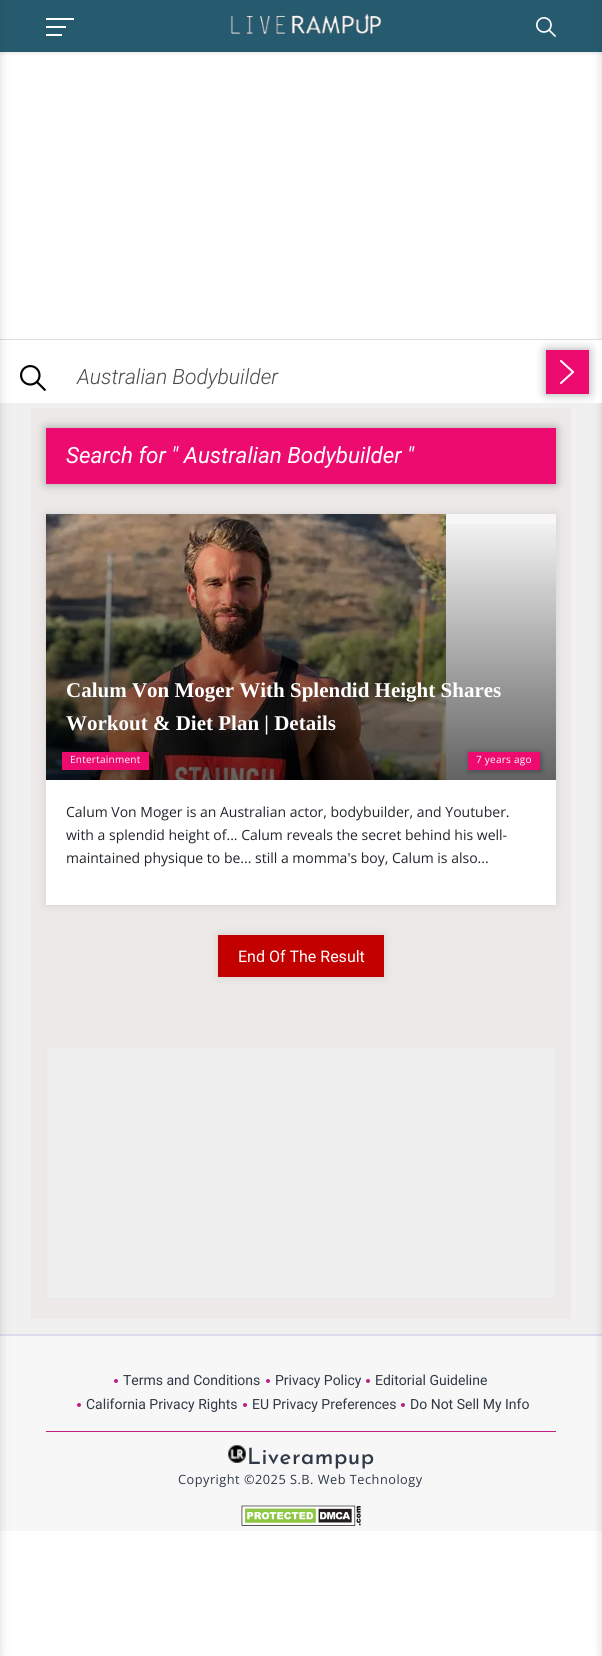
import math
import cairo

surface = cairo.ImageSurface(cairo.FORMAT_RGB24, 602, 1656)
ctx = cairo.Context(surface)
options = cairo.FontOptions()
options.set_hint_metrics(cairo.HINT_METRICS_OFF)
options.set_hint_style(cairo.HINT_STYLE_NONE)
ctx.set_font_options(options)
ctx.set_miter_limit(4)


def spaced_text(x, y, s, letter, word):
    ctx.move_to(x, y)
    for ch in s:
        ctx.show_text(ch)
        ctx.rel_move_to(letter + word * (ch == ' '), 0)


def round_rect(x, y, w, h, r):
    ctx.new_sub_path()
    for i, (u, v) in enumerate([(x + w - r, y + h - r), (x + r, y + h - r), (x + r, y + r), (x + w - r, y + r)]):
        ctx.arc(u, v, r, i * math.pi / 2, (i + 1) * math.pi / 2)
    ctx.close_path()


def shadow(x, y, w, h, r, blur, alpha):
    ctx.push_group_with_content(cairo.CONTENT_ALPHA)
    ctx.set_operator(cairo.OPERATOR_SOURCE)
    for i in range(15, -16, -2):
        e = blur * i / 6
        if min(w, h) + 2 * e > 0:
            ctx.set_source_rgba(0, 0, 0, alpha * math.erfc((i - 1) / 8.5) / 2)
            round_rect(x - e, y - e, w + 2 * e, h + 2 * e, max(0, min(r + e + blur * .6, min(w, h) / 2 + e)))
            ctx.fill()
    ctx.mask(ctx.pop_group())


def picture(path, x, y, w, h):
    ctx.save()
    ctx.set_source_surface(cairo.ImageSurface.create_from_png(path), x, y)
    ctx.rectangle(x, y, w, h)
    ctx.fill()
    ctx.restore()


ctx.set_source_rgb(1, 1, 1)
ctx.paint()
ctx.set_source_rgb(0, 0, 0)
shadow(1, 0, 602, 52, 0, 2.5, 0.15)
ctx.set_source_rgb(0.149, 0.353, 0.431)
ctx.rectangle(0, 0, 602, 52)
ctx.fill()
ctx.set_source_rgb(1, 1, 1)
ctx.rectangle(46, 18, 28, 2)
ctx.fill()
ctx.rectangle(46, 26, 20, 2)
ctx.fill()
ctx.rectangle(46, 34, 16, 2)
ctx.fill()
picture("img1.png", 230, 13, 151, 21)
picture("img2.png", 536, 17, 20, 20)
ctx.set_source_rgb(0.941, 0.941, 0.941)
ctx.rectangle(0, 403, 602, 931)
ctx.fill()
ctx.set_source_rgb(0.965, 0.965, 0.965)
ctx.rectangle(0, 1336, 602, 195)
ctx.fill()
ctx.set_source_rgb(0.863, 0.863, 0.925)
ctx.rectangle(0, 1334, 602, 2)
ctx.fill()
ctx.set_source_rgb(0.196, 0.196, 0.196)
shadow(602, 0, 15, 1656, 0, 5, 0.2)
ctx.set_source_rgb(0.867, 0.867, 0.867)
ctx.rectangle(0, 339, 602, 1)
ctx.fill()
ctx.set_source_rgb(0.196, 0.196, 0.196)
shadow(-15, 0, 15, 1656, 0, 5, 0.2)
ctx.set_source_rgba(1, 1, 1, 0.95)
ctx.rectangle(595, 340, 7, 63)
ctx.fill()
picture("img3.png", 20, 365, 26, 26)
ctx.select_font_face("Roboto Light", cairo.FONT_SLANT_ITALIC)
ctx.set_font_size(21.1)
ctx.set_source_rgb(0.29, 0.29, 0.29)
ctx.move_to(77, 384)
ctx.show_text("Australian Bodybuilder")
ctx.set_source_rgb(0.929, 0.914, 0.914)
ctx.rectangle(31, 408, 540, 911)
ctx.fill()
ctx.set_source_rgb(0, 0, 0)
shadow(546, 350, 43, 44, 0, 5, 0.35)
ctx.set_source_rgb(0.929, 0.043, 0.439)
ctx.rectangle(546, 350, 43, 44)
ctx.fill()
picture("img4.png", 560, 360, 14, 24)
ctx.set_source_rgb(0, 0, 0)
shadow(46, 428, 510, 56, 0, 5, 0.32)
ctx.set_source_rgb(0.929, 0.043, 0.439)
ctx.rectangle(46, 428, 510, 56)
ctx.fill()
ctx.select_font_face("Roboto", cairo.FONT_SLANT_ITALIC)
ctx.set_font_size(22.4)
ctx.set_source_rgb(1, 1, 1)
ctx.move_to(66, 463)
ctx.show_text("Search for \" Australian Bodybuilder \"")
ctx.set_source_rgb(0, 0, 0)
shadow(46, 514, 510, 391, 0, 5, 0.11)
ctx.set_source_rgb(1, 1, 1)
ctx.rectangle(46, 780, 510, 125)
ctx.fill()
ctx.set_source_rgb(0.965, 0.965, 0.965)
ctx.rectangle(446, 514, 110, 266)
ctx.fill()
picture("img5.png", 46, 514, 400, 266)
gradient = cairo.LinearGradient(301, 514, 301, 780)
gradient.add_color_stop_rgba(0, 0, 0, 0, 0)
gradient.add_color_stop_rgba(1, 0, 0, 0, 0.6)
ctx.set_source(gradient)
ctx.rectangle(46, 524, 510, 256)
ctx.fill()
ctx.select_font_face("Liberation Serif", cairo.FONT_SLANT_NORMAL, cairo.FONT_WEIGHT_BOLD)
ctx.set_font_size(21)
ctx.set_source_rgb(1, 1, 1)
ctx.move_to(66, 697)
ctx.show_text("Calum Von Moger With Splendid Height Shares")
ctx.move_to(66, 730)
ctx.show_text("Workout & Diet Plan | Details")
ctx.select_font_face("Open Sans")
ctx.set_font_size(14)
ctx.set_source_rgb(0.129, 0.145, 0.161)
ctx.move_to(66, 817)
ctx.show_text("Calum Von Moger is an Australian actor, bodybuilder, and Youtuber.")
ctx.move_to(66, 840)
ctx.show_text("with a splendid height of... Calum reveals the secret behind his well-")
ctx.move_to(66, 863)
ctx.show_text("maintained physique to be... still a momma's boy, Calum is also...")
ctx.set_source_rgb(0, 0, 0)
shadow(63, 753, 87, 18, 0, 3, 0.33)
ctx.set_source_rgb(0.929, 0.043, 0.439)
ctx.rectangle(62, 752, 87, 18)
ctx.fill()
ctx.set_font_size(10)
ctx.set_source_rgb(1, 1, 1)
spaced_text(70, 763, "Entertainment", 0.25, 0)
ctx.set_source_rgb(0, 0, 0)
shadow(469, 753, 72, 18, 0, 3, 0.33)
ctx.set_source_rgb(0.929, 0.043, 0.439)
ctx.rectangle(468, 752, 72, 18)
ctx.fill()
ctx.set_source_rgb(1, 1, 1)
spaced_text(476, 763, "7 years ago", 0.25, 0)
ctx.set_source_rgb(0, 0, 0)
shadow(218, 935, 166, 42, 0, 5, 0.11)
ctx.set_source_rgb(0.765, 0, 0)
ctx.rectangle(218, 935, 166, 42)
ctx.fill()
ctx.select_font_face("Roboto")
ctx.set_font_size(16)
ctx.set_source_rgb(1, 1, 1)
ctx.move_to(238, 962)
ctx.show_text("End Of The Result")
round_rect(46.5, 1047.5, 509, 251, 2.5)
ctx.set_source_rgb(0.91, 0.91, 0.91)
ctx.set_line_width(1)
ctx.stroke()
gradient = cairo.LinearGradient(-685, 1100, 515, 1100)
gradient.add_color_stop_rgba(0.08, 0.933, 0.933, 0.933, 1)
gradient.add_color_stop_rgba(0.18, 0.867, 0.867, 0.867, 1)
gradient.add_color_stop_rgba(0.33, 0.933, 0.933, 0.933, 1)
ctx.set_source(gradient)
ctx.rectangle(47, 1048, 468, 250)
ctx.fill()
gradient = cairo.LinearGradient(515, 1100, 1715, 1100)
gradient.add_color_stop_rgba(0.08, 0.933, 0.933, 0.933, 1)
gradient.add_color_stop_rgba(0.18, 0.867, 0.867, 0.867, 1)
gradient.add_color_stop_rgba(0.33, 0.933, 0.933, 0.933, 1)
ctx.set_source(gradient)
ctx.rectangle(515, 1048, 40, 250)
ctx.fill()
ctx.set_source_rgb(0.741, 0.122, 0.51)
ctx.arc(116, 1381, 2, 0, 2 * math.pi)
ctx.fill()
ctx.set_font_size(14)
ctx.set_source_rgb(0.184, 0.22, 0.275)
ctx.move_to(123, 1385)
ctx.show_text("Terms and Conditions")
ctx.set_source_rgb(0.741, 0.122, 0.51)
ctx.new_path()
ctx.arc(268, 1381, 2, 0, 2 * math.pi)
ctx.fill()
ctx.set_source_rgb(0.184, 0.22, 0.275)
ctx.move_to(275, 1385)
ctx.show_text("Privacy Policy")
ctx.set_source_rgb(0.741, 0.122, 0.51)
ctx.new_path()
ctx.arc(368, 1381, 2, 0, 2 * math.pi)
ctx.fill()
ctx.set_source_rgb(0.184, 0.22, 0.275)
ctx.move_to(375, 1385)
ctx.show_text("Editorial Guideline")
ctx.set_source_rgb(0.741, 0.122, 0.51)
ctx.new_path()
ctx.arc(79, 1405, 2, 0, 2 * math.pi)
ctx.fill()
ctx.set_source_rgb(0.184, 0.22, 0.275)
ctx.move_to(86, 1409)
ctx.show_text("California Privacy Rights")
ctx.set_source_rgb(0.741, 0.122, 0.51)
ctx.new_path()
ctx.arc(245, 1405, 2, 0, 2 * math.pi)
ctx.fill()
ctx.set_source_rgb(0.184, 0.22, 0.275)
ctx.move_to(252, 1409)
ctx.show_text("EU Privacy Preferences")
ctx.set_source_rgb(0.741, 0.122, 0.51)
ctx.new_path()
ctx.arc(403, 1405, 2, 0, 2 * math.pi)
ctx.fill()
ctx.set_source_rgb(0.184, 0.22, 0.275)
ctx.move_to(410, 1409)
ctx.show_text("Do Not Sell My Info")
ctx.set_source_rgb(0.741, 0.122, 0.51)
ctx.rectangle(46, 1431, 510, 1)
ctx.fill()
picture("img6.png", 228, 1445, 18, 18)
ctx.select_font_face("Josefin Sans Medium")
ctx.set_font_size(22.4)
ctx.set_source_rgb(0.184, 0.22, 0.275)
spaced_text(247, 1464, "Liverampup", 0.5, 0)
ctx.select_font_face("Open Sans")
ctx.set_font_size(12.75)
spaced_text(178, 1484, "Copyright ©2025 S.B. Web Technology", 0.5, 0)
picture("img7.png", 241, 1505, 120, 21)
surface.write_to_png("page.png")
